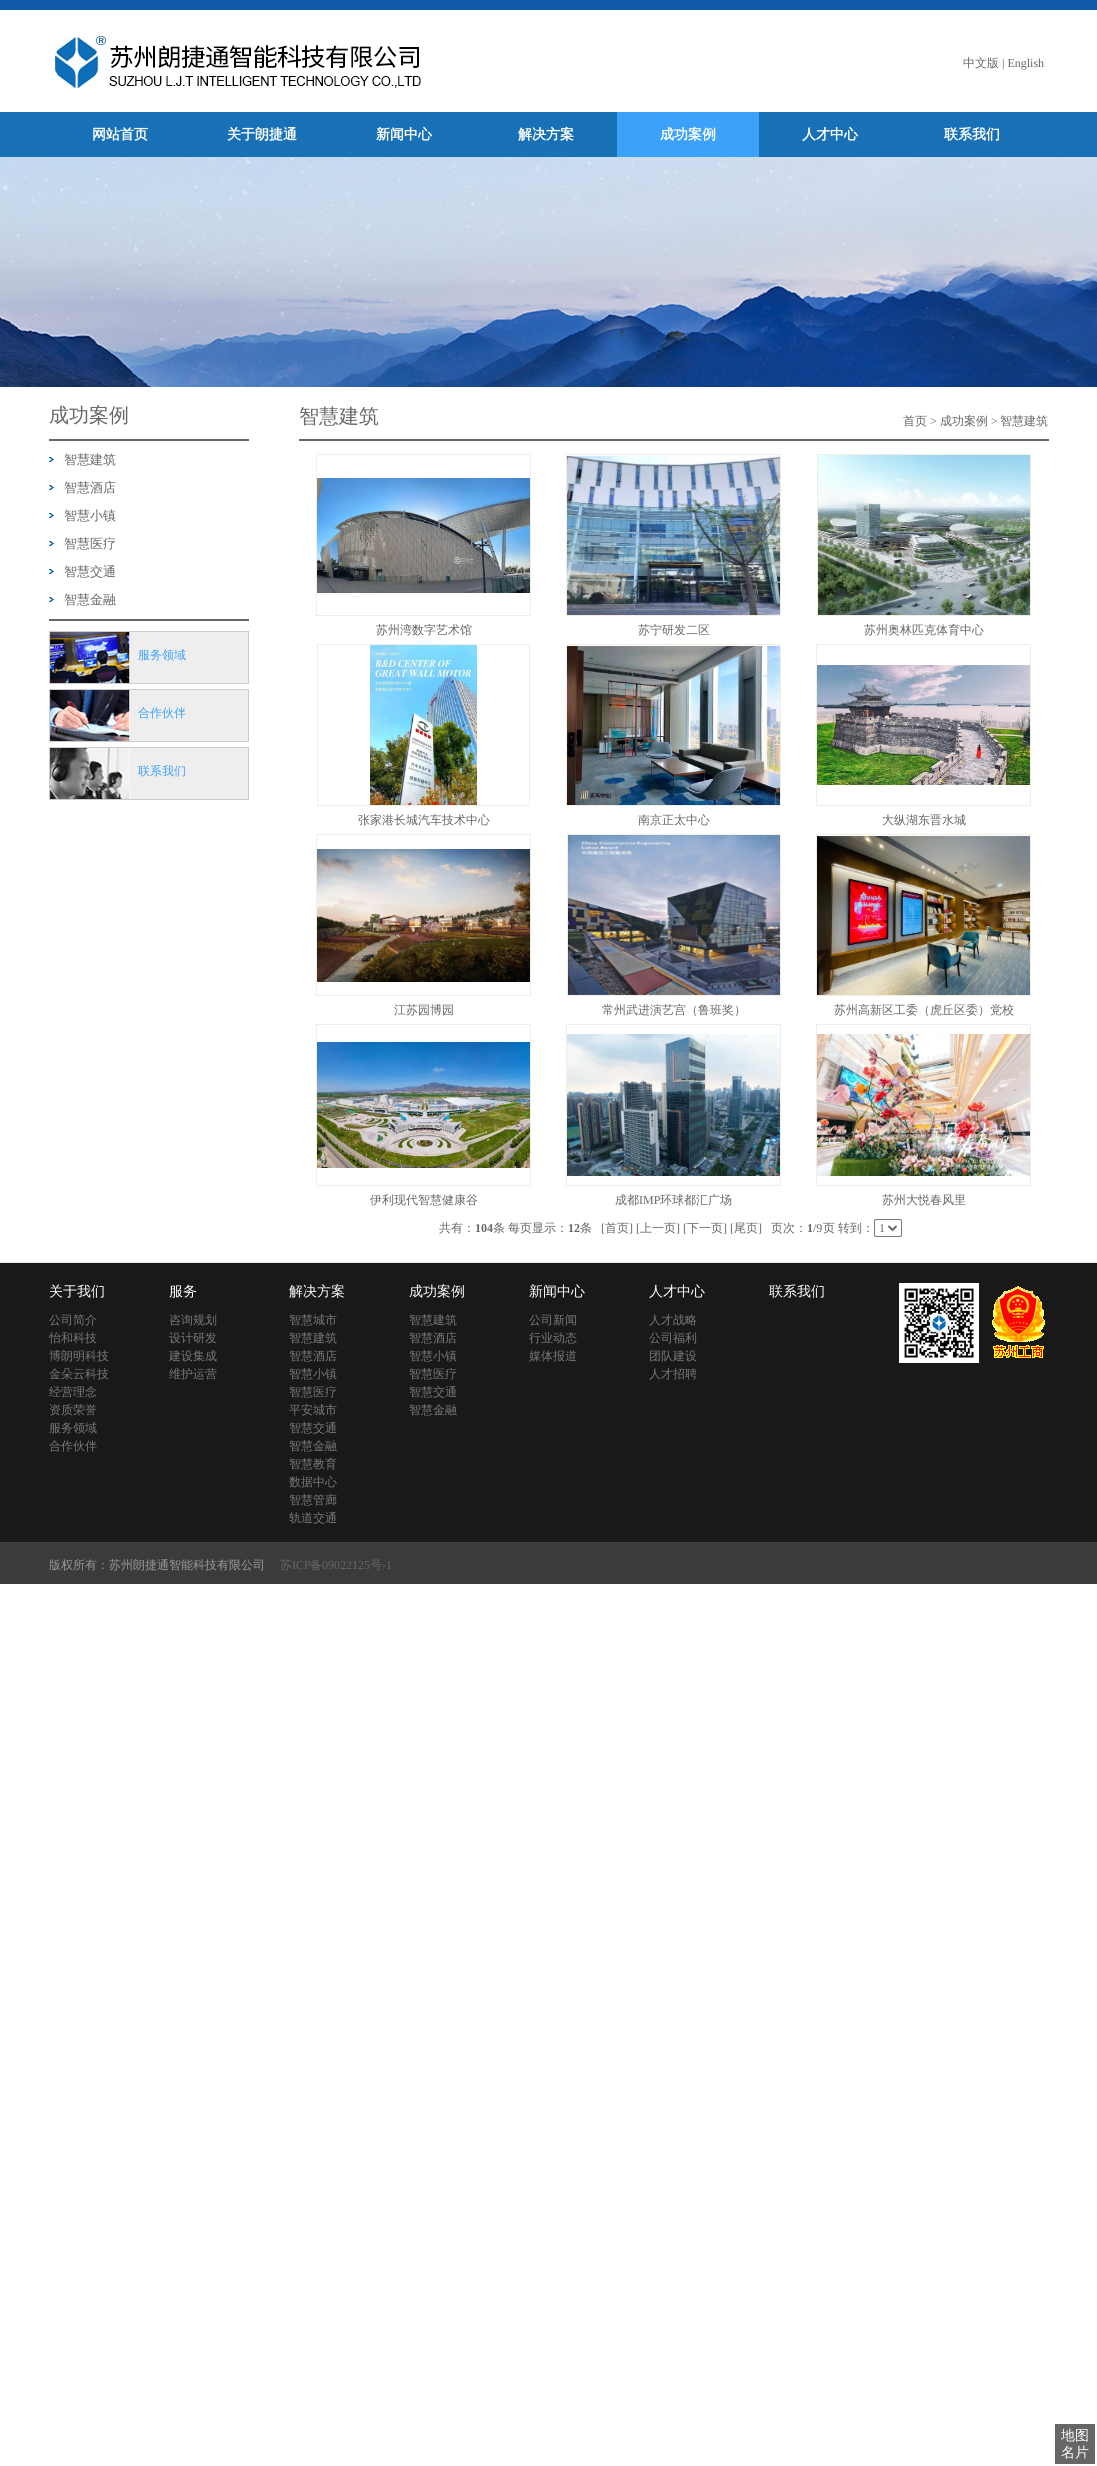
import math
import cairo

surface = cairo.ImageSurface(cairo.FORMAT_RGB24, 1097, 2466)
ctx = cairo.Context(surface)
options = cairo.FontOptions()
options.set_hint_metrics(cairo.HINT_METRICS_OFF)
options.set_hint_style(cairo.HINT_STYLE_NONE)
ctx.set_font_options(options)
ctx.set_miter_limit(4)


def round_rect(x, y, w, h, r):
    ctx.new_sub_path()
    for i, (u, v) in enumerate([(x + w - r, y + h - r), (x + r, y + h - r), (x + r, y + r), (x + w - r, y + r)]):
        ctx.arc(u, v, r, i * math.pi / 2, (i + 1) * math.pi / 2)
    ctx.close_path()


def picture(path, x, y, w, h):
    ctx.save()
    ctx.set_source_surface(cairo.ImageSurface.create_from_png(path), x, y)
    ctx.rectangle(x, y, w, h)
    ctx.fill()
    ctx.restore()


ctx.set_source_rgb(1, 1, 1)
ctx.paint()
ctx.set_source_rgb(0.067, 0.353, 0.663)
ctx.rectangle(0, 0, 1097, 10)
ctx.fill()
picture("img1.png", 52, 36, 369, 54)
ctx.select_font_face("WenQuanYi Zen Hei Medium")
ctx.set_font_size(12)
ctx.set_source_rgb(0.4, 0.4, 0.4)
ctx.move_to(963, 67)
ctx.show_text("中文版")
ctx.select_font_face("Liberation Serif")
ctx.move_to(1002, 67)
ctx.show_text("| English")
ctx.set_source_rgb(0.094, 0.443, 0.714)
ctx.rectangle(0, 112, 1097, 45)
ctx.fill()
ctx.select_font_face("WenQuanYi Zen Hei", cairo.FONT_SLANT_NORMAL, cairo.FONT_WEIGHT_BOLD)
ctx.set_font_size(14)
ctx.set_source_rgb(1, 1, 1)
ctx.move_to(92, 139)
ctx.show_text("网站首页")
ctx.move_to(227, 139)
ctx.show_text("关于朗捷通")
ctx.move_to(376, 139)
ctx.show_text("新闻中心")
ctx.move_to(518, 139)
ctx.show_text("解决方案")
ctx.set_source_rgb(0.235, 0.631, 0.976)
ctx.rectangle(617, 112, 142, 45)
ctx.fill()
ctx.set_source_rgb(1, 1, 1)
ctx.move_to(660, 139)
ctx.show_text("成功案例")
ctx.move_to(802, 139)
ctx.show_text("人才中心")
ctx.move_to(944, 139)
ctx.show_text("联系我们")
picture("img2.png", 0, 157, 1097, 230)
ctx.set_source_rgb(0.4, 0.4, 0.4)
ctx.rectangle(49, 619, 200, 2)
ctx.fill()
ctx.select_font_face("WenQuanYi Zen Hei Medium")
ctx.set_font_size(20)
ctx.move_to(49, 422)
ctx.show_text("成功案例")
ctx.rectangle(49, 439, 200, 2)
ctx.fill()
picture("img3.png", 49, 457, 5, 5)
ctx.set_font_size(13)
ctx.move_to(64, 464)
ctx.show_text("智慧建筑")
picture("img3.png", 49, 485, 5, 5)
ctx.move_to(64, 492)
ctx.show_text("智慧酒店")
picture("img3.png", 49, 513, 5, 5)
ctx.move_to(64, 520)
ctx.show_text("智慧小镇")
picture("img3.png", 49, 541, 5, 5)
ctx.move_to(64, 548)
ctx.show_text("智慧医疗")
picture("img3.png", 49, 569, 5, 5)
ctx.move_to(64, 576)
ctx.show_text("智慧交通")
picture("img3.png", 49, 597, 5, 5)
ctx.move_to(64, 604)
ctx.show_text("智慧金融")
ctx.set_source_rgb(0.933, 0.933, 0.933)
ctx.rectangle(130, 632, 118, 51)
ctx.fill()
ctx.rectangle(49.5, 631.5, 199, 52)
ctx.set_source_rgb(0.8, 0.8, 0.8)
ctx.set_line_width(1)
ctx.stroke()
picture("img4.png", 50, 632, 80, 51)
ctx.set_font_size(12)
ctx.set_source_rgb(0.235, 0.631, 0.976)
ctx.move_to(138, 659)
ctx.show_text("服务领域")
ctx.set_source_rgb(0.933, 0.933, 0.933)
ctx.rectangle(130, 690, 118, 51)
ctx.fill()
ctx.rectangle(49.5, 689.5, 199, 52)
ctx.set_source_rgb(0.8, 0.8, 0.8)
ctx.stroke()
picture("img5.png", 50, 690, 80, 51)
ctx.set_source_rgb(0.235, 0.631, 0.976)
ctx.move_to(138, 717)
ctx.show_text("合作伙伴")
ctx.set_source_rgb(0.933, 0.933, 0.933)
ctx.rectangle(130, 748, 118, 51)
ctx.fill()
ctx.rectangle(49.5, 747.5, 199, 52)
ctx.set_source_rgb(0.8, 0.8, 0.8)
ctx.stroke()
picture("img6.png", 50, 748, 80, 51)
ctx.set_source_rgb(0.235, 0.631, 0.976)
ctx.move_to(138, 775)
ctx.show_text("联系我们")
ctx.set_source_rgb(0.4, 0.4, 0.4)
ctx.rectangle(299, 439, 750, 2)
ctx.fill()
ctx.set_font_size(20)
ctx.move_to(299, 423)
ctx.show_text("智慧建筑")
ctx.set_font_size(12)
ctx.move_to(903, 425)
ctx.show_text("首页")
ctx.select_font_face("Liberation Serif")
ctx.move_to(930, 425)
ctx.show_text(">")
ctx.select_font_face("WenQuanYi Zen Hei Medium")
ctx.move_to(940, 425)
ctx.show_text("成功案例")
ctx.select_font_face("Liberation Serif")
ctx.move_to(991, 425)
ctx.show_text(">")
ctx.select_font_face("WenQuanYi Zen Hei Medium")
ctx.move_to(1000, 425)
ctx.show_text("智慧建筑")
ctx.rectangle(316.5, 454.5, 214, 161)
ctx.set_source_rgb(0.949, 0.933, 0.89)
ctx.stroke()
picture("img7.png", 317, 478, 213, 115)
ctx.set_source_rgb(0.4, 0.4, 0.4)
ctx.move_to(376, 634)
ctx.show_text("苏州湾数字艺术馆")
ctx.rectangle(566.5, 454.5, 214, 161)
ctx.set_source_rgb(0.949, 0.933, 0.89)
ctx.stroke()
picture("img8.png", 567, 456, 213, 159)
ctx.set_source_rgb(0.4, 0.4, 0.4)
ctx.move_to(638, 634)
ctx.show_text("苏宁研发二区")
ctx.rectangle(817.5, 454.5, 213, 161)
ctx.set_source_rgb(0.949, 0.933, 0.89)
ctx.stroke()
picture("img9.png", 818, 455, 212, 160)
ctx.set_source_rgb(0.4, 0.4, 0.4)
ctx.move_to(864, 634)
ctx.show_text("苏州奥林匹克体育中心")
ctx.rectangle(317.5, 644.5, 212, 161)
ctx.set_source_rgb(0.949, 0.933, 0.89)
ctx.stroke()
picture("img10.png", 370, 645, 107, 160)
ctx.set_source_rgb(0.4, 0.4, 0.4)
ctx.move_to(358, 824)
ctx.show_text("张家港长城汽车技术中心")
ctx.rectangle(566.5, 644.5, 214, 161)
ctx.set_source_rgb(0.949, 0.933, 0.89)
ctx.stroke()
picture("img11.png", 567, 646, 213, 159)
ctx.set_source_rgb(0.4, 0.4, 0.4)
ctx.move_to(638, 824)
ctx.show_text("南京正太中心")
ctx.rectangle(816.5, 644.5, 214, 161)
ctx.set_source_rgb(0.949, 0.933, 0.89)
ctx.stroke()
picture("img12.png", 817, 665, 213, 120)
ctx.set_source_rgb(0.4, 0.4, 0.4)
ctx.move_to(882, 824)
ctx.show_text("大纵湖东晋水城")
ctx.rectangle(316.5, 834.5, 214, 161)
ctx.set_source_rgb(0.949, 0.933, 0.89)
ctx.stroke()
picture("img13.png", 317, 849, 213, 133)
ctx.set_source_rgb(0.4, 0.4, 0.4)
ctx.move_to(394, 1014)
ctx.show_text("江苏园博园")
ctx.rectangle(567.5, 834.5, 213, 161)
ctx.set_source_rgb(0.949, 0.933, 0.89)
ctx.stroke()
picture("img14.png", 568, 835, 212, 160)
ctx.set_source_rgb(0.4, 0.4, 0.4)
ctx.move_to(602, 1014)
ctx.show_text("常州武进演艺宫（鲁班奖）")
ctx.rectangle(816.5, 834.5, 214, 161)
ctx.set_source_rgb(0.949, 0.933, 0.89)
ctx.stroke()
picture("img15.png", 817, 836, 213, 159)
ctx.set_source_rgb(0.4, 0.4, 0.4)
ctx.move_to(834, 1014)
ctx.show_text("苏州高新区工委（虎丘区委）党校")
ctx.rectangle(316.5, 1024.5, 214, 161)
ctx.set_source_rgb(0.949, 0.933, 0.89)
ctx.stroke()
picture("img16.png", 317, 1042, 213, 126)
ctx.set_source_rgb(0.4, 0.4, 0.4)
ctx.move_to(370, 1204)
ctx.show_text("伊利现代智慧健康谷")
ctx.rectangle(566.5, 1024.5, 214, 161)
ctx.set_source_rgb(0.949, 0.933, 0.89)
ctx.stroke()
picture("img17.png", 567, 1034, 213, 142)
ctx.set_source_rgb(0.4, 0.4, 0.4)
ctx.move_to(615, 1204)
ctx.show_text("成都")
ctx.select_font_face("Liberation Serif")
ctx.move_to(639, 1204)
ctx.show_text("IMP")
ctx.select_font_face("WenQuanYi Zen Hei Medium")
ctx.move_to(660, 1204)
ctx.show_text("环球都汇广场")
ctx.rectangle(816.5, 1024.5, 214, 161)
ctx.set_source_rgb(0.949, 0.933, 0.89)
ctx.stroke()
picture("img18.png", 817, 1034, 213, 142)
ctx.set_source_rgb(0.4, 0.4, 0.4)
ctx.move_to(882, 1204)
ctx.show_text("苏州大悦春风里")
ctx.move_to(439, 1232)
ctx.show_text("共有：")
ctx.select_font_face("Liberation Serif", cairo.FONT_SLANT_NORMAL, cairo.FONT_WEIGHT_BOLD)
ctx.move_to(475, 1232)
ctx.show_text("104")
ctx.select_font_face("WenQuanYi Zen Hei Medium")
ctx.move_to(493, 1232)
ctx.show_text("条")
ctx.move_to(508, 1232)
ctx.show_text("每页显示：")
ctx.select_font_face("Liberation Serif", cairo.FONT_SLANT_NORMAL, cairo.FONT_WEIGHT_BOLD)
ctx.move_to(568, 1232)
ctx.show_text("12")
ctx.select_font_face("WenQuanYi Zen Hei Medium")
ctx.move_to(580, 1232)
ctx.show_text("条")
ctx.select_font_face("Liberation Serif")
ctx.move_to(601, 1232)
ctx.show_text("[")
ctx.select_font_face("WenQuanYi Zen Hei Medium")
ctx.move_to(605, 1232)
ctx.show_text("首页")
ctx.select_font_face("Liberation Serif")
ctx.move_to(629, 1232)
ctx.show_text("] [")
ctx.select_font_face("WenQuanYi Zen Hei Medium")
ctx.move_to(640, 1232)
ctx.show_text("上一页")
ctx.select_font_face("Liberation Serif")
ctx.move_to(676, 1232)
ctx.show_text("] [")
ctx.select_font_face("WenQuanYi Zen Hei Medium")
ctx.move_to(687, 1232)
ctx.show_text("下一页")
ctx.select_font_face("Liberation Serif")
ctx.move_to(723, 1232)
ctx.show_text("] [")
ctx.select_font_face("WenQuanYi Zen Hei Medium")
ctx.move_to(734, 1232)
ctx.show_text("尾页")
ctx.select_font_face("Liberation Serif")
ctx.move_to(758, 1232)
ctx.show_text("]")
ctx.select_font_face("WenQuanYi Zen Hei Medium")
ctx.move_to(771, 1232)
ctx.show_text("页次：")
ctx.select_font_face("Liberation Serif", cairo.FONT_SLANT_NORMAL, cairo.FONT_WEIGHT_BOLD)
ctx.move_to(807, 1232)
ctx.show_text("1")
ctx.select_font_face("Liberation Serif")
ctx.move_to(813, 1232)
ctx.show_text("/9")
ctx.select_font_face("WenQuanYi Zen Hei Medium")
ctx.move_to(823, 1232)
ctx.show_text("页")
ctx.move_to(838, 1232)
ctx.show_text("转到：")
round_rect(874.5, 1219.5, 27, 17, 1.5)
ctx.set_source_rgb(0.463, 0.463, 0.463)
ctx.stroke()
ctx.new_path()
ctx.move_to(888.5, 1226)
ctx.line_to(892.5, 1230)
ctx.line_to(896.5, 1226)
ctx.set_source_rgb(0.4, 0.4, 0.4)
ctx.set_line_width(2)
ctx.stroke()
ctx.select_font_face("Liberation Serif")
ctx.move_to(879, 1232)
ctx.show_text("1")
ctx.set_source_rgb(0.098, 0.098, 0.098)
ctx.rectangle(0, 1263, 1097, 279)
ctx.fill()
ctx.set_source_rgb(0.231, 0.231, 0.231)
ctx.rectangle(0, 1542, 1097, 42)
ctx.fill()
ctx.set_source_rgb(0.898, 0.898, 0.898)
ctx.rectangle(0, 1262, 1097, 1)
ctx.fill()
ctx.select_font_face("WenQuanYi Zen Hei Medium")
ctx.set_font_size(14)
ctx.set_source_rgb(1, 1, 1)
ctx.move_to(49, 1296)
ctx.show_text("关于我们")
ctx.set_font_size(12)
ctx.set_source_rgb(0.482, 0.467, 0.467)
ctx.move_to(49, 1324)
ctx.show_text("公司简介")
ctx.move_to(49, 1342)
ctx.show_text("怡和科技")
ctx.move_to(49, 1360)
ctx.show_text("博朗明科技")
ctx.move_to(49, 1378)
ctx.show_text("金朵云科技")
ctx.move_to(49, 1396)
ctx.show_text("经营理念")
ctx.move_to(49, 1414)
ctx.show_text("资质荣誉")
ctx.move_to(49, 1432)
ctx.show_text("服务领域")
ctx.move_to(49, 1450)
ctx.show_text("合作伙伴")
ctx.set_font_size(14)
ctx.set_source_rgb(1, 1, 1)
ctx.move_to(169, 1296)
ctx.show_text("服务")
ctx.set_font_size(12)
ctx.set_source_rgb(0.482, 0.467, 0.467)
ctx.move_to(169, 1324)
ctx.show_text("咨询规划")
ctx.move_to(169, 1342)
ctx.show_text("设计研发")
ctx.move_to(169, 1360)
ctx.show_text("建设集成")
ctx.move_to(169, 1378)
ctx.show_text("维护运营")
ctx.set_font_size(14)
ctx.set_source_rgb(1, 1, 1)
ctx.move_to(289, 1296)
ctx.show_text("解决方案")
ctx.set_font_size(12)
ctx.set_source_rgb(0.482, 0.467, 0.467)
ctx.move_to(289, 1324)
ctx.show_text("智慧城市")
ctx.move_to(289, 1342)
ctx.show_text("智慧建筑")
ctx.move_to(289, 1360)
ctx.show_text("智慧酒店")
ctx.move_to(289, 1378)
ctx.show_text("智慧小镇")
ctx.move_to(289, 1396)
ctx.show_text("智慧医疗")
ctx.move_to(289, 1414)
ctx.show_text("平安城市")
ctx.move_to(289, 1432)
ctx.show_text("智慧交通")
ctx.move_to(289, 1450)
ctx.show_text("智慧金融")
ctx.move_to(289, 1468)
ctx.show_text("智慧教育")
ctx.move_to(289, 1486)
ctx.show_text("数据中心")
ctx.move_to(289, 1504)
ctx.show_text("智慧管廊")
ctx.move_to(289, 1522)
ctx.show_text("轨道交通")
ctx.set_font_size(14)
ctx.set_source_rgb(1, 1, 1)
ctx.move_to(409, 1296)
ctx.show_text("成功案例")
ctx.set_font_size(12)
ctx.set_source_rgb(0.482, 0.467, 0.467)
ctx.move_to(409, 1324)
ctx.show_text("智慧建筑")
ctx.move_to(409, 1342)
ctx.show_text("智慧酒店")
ctx.move_to(409, 1360)
ctx.show_text("智慧小镇")
ctx.move_to(409, 1378)
ctx.show_text("智慧医疗")
ctx.move_to(409, 1396)
ctx.show_text("智慧交通")
ctx.move_to(409, 1414)
ctx.show_text("智慧金融")
ctx.set_font_size(14)
ctx.set_source_rgb(1, 1, 1)
ctx.move_to(529, 1296)
ctx.show_text("新闻中心")
ctx.set_font_size(12)
ctx.set_source_rgb(0.482, 0.467, 0.467)
ctx.move_to(529, 1324)
ctx.show_text("公司新闻")
ctx.move_to(529, 1342)
ctx.show_text("行业动态")
ctx.move_to(529, 1360)
ctx.show_text("媒体报道")
ctx.set_font_size(14)
ctx.set_source_rgb(1, 1, 1)
ctx.move_to(649, 1296)
ctx.show_text("人才中心")
ctx.set_font_size(12)
ctx.set_source_rgb(0.482, 0.467, 0.467)
ctx.move_to(649, 1324)
ctx.show_text("人才战略")
ctx.move_to(649, 1342)
ctx.show_text("公司福利")
ctx.move_to(649, 1360)
ctx.show_text("团队建设")
ctx.move_to(649, 1378)
ctx.show_text("人才招聘")
ctx.set_font_size(14)
ctx.set_source_rgb(1, 1, 1)
ctx.move_to(769, 1296)
ctx.show_text("联系我们")
picture("img19.png", 899, 1283, 80, 80)
picture("img20.png", 992, 1286, 53, 72)
ctx.set_font_size(12)
ctx.set_source_rgb(0.6, 0.6, 0.6)
ctx.move_to(49, 1569)
ctx.show_text("版权所有：苏州朗捷通智能科技有限公司")
ctx.set_source_rgb(0.4, 0.4, 0.4)
ctx.move_to(280, 1569)
ctx.show_text("苏")
ctx.select_font_face("Liberation Serif")
ctx.move_to(292, 1569)
ctx.show_text("ICP")
ctx.select_font_face("WenQuanYi Zen Hei Medium")
ctx.move_to(310, 1569)
ctx.show_text("备")
ctx.select_font_face("Liberation Serif")
ctx.move_to(322, 1569)
ctx.show_text("09022125")
ctx.select_font_face("WenQuanYi Zen Hei Medium")
ctx.move_to(370, 1569)
ctx.show_text("号")
ctx.select_font_face("Liberation Serif")
ctx.move_to(382, 1569)
ctx.show_text("-1")
ctx.rectangle(1055, 2424, 40, 40)
ctx.fill()
ctx.select_font_face("WenQuanYi Zen Hei Medium")
ctx.set_font_size(14)
ctx.set_source_rgb(1, 1, 1)
ctx.move_to(1061, 2440)
ctx.show_text("地图")
ctx.move_to(1061, 2457)
ctx.show_text("名片")
surface.write_to_png("page.png")
